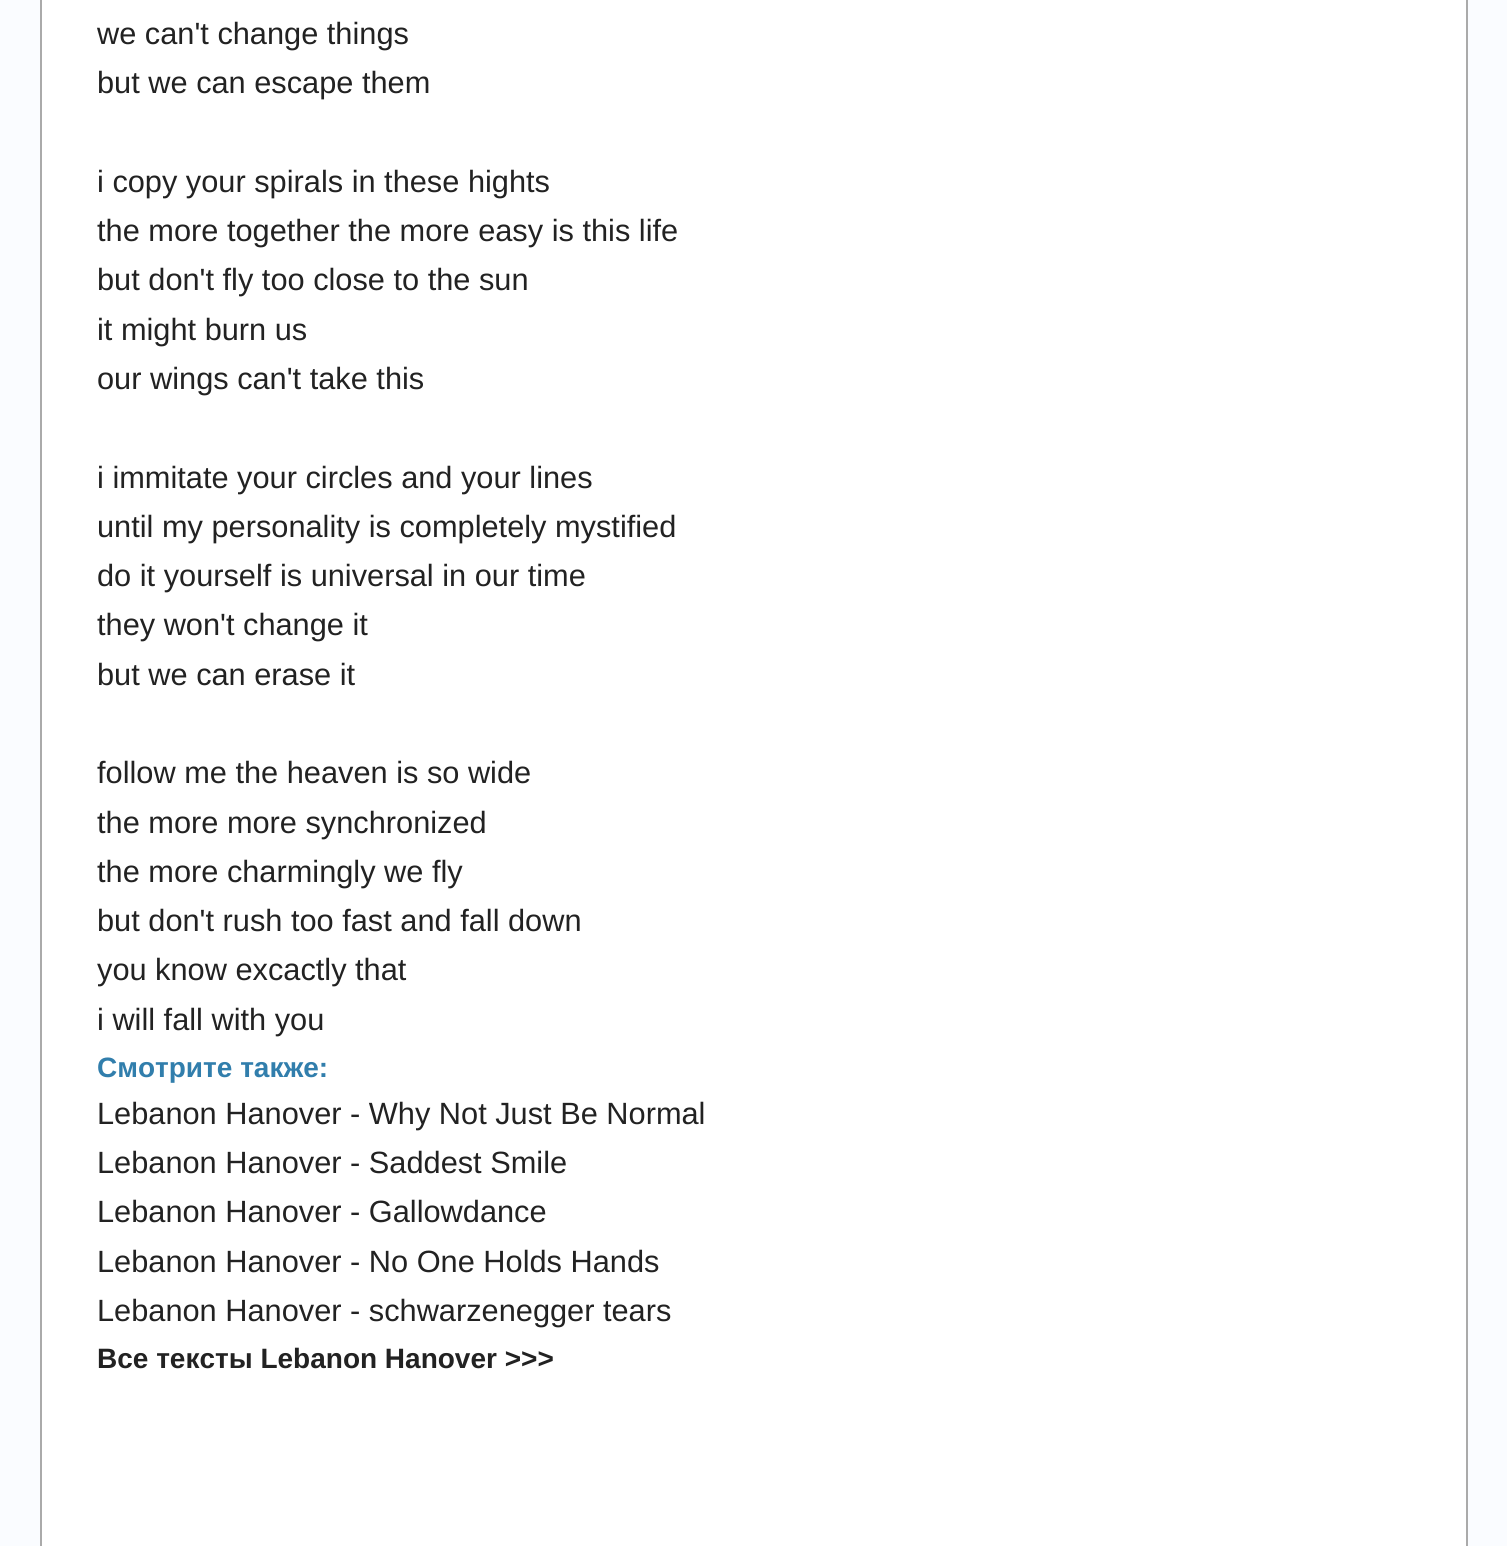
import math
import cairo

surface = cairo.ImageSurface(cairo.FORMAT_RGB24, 1507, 1546)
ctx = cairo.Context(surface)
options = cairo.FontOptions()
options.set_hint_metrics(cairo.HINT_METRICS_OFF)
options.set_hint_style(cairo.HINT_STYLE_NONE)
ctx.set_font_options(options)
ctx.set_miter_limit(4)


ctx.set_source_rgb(0.98, 0.988, 1)
ctx.paint()
ctx.set_source_rgb(1, 1, 1)
ctx.rectangle(41, -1, 1426, 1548)
ctx.fill_preserve()
ctx.set_source_rgb(0.667, 0.667, 0.667)
ctx.stroke()
ctx.select_font_face("Liberation Sans")
ctx.set_font_size(30.75)
ctx.set_source_rgb(0.133, 0.133, 0.133)
ctx.move_to(97, 44)
ctx.show_text("we can't change things")
ctx.move_to(97, 93)
ctx.show_text("but we can escape them")
ctx.move_to(97, 192)
ctx.show_text("i copy your spirals in these hights")
ctx.move_to(97, 241)
ctx.show_text("the more together the more easy is this life")
ctx.move_to(97, 290)
ctx.show_text("but don't fly too close to the sun")
ctx.move_to(97, 340)
ctx.show_text("it might burn us")
ctx.move_to(97, 389)
ctx.show_text("our wings can't take this")
ctx.move_to(97, 488)
ctx.show_text("i immitate your circles and your lines")
ctx.move_to(97, 537)
ctx.show_text("until my personality is completely mystified")
ctx.move_to(97, 586)
ctx.show_text("do it yourself is universal in our time")
ctx.move_to(97, 635)
ctx.show_text("they won't change it")
ctx.move_to(97, 685)
ctx.show_text("but we can erase it")
ctx.move_to(97, 783)
ctx.show_text("follow me the heaven is so wide")
ctx.move_to(97, 833)
ctx.show_text("the more more synchronized")
ctx.move_to(97, 882)
ctx.show_text("the more charmingly we fly")
ctx.move_to(97, 931)
ctx.show_text("but don't rush too fast and fall down")
ctx.move_to(97, 980)
ctx.show_text("you know excactly that")
ctx.move_to(97, 1030)
ctx.show_text("i will fall with you")
ctx.select_font_face("Liberation Sans", cairo.FONT_SLANT_NORMAL, cairo.FONT_WEIGHT_BOLD)
ctx.set_font_size(28)
ctx.set_source_rgb(0.192, 0.494, 0.675)
ctx.move_to(97, 1077)
ctx.show_text("Смотрите также:")
ctx.select_font_face("Liberation Sans")
ctx.set_font_size(30.75)
ctx.set_source_rgb(0.133, 0.133, 0.133)
ctx.move_to(97, 1124)
ctx.show_text("Lebanon Hanover - Why Not Just Be Normal")
ctx.move_to(97, 1173)
ctx.show_text("Lebanon Hanover - Saddest Smile")
ctx.move_to(97, 1222)
ctx.show_text("Lebanon Hanover - Gallowdance")
ctx.move_to(97, 1272)
ctx.show_text("Lebanon Hanover - No One Holds Hands")
ctx.move_to(97, 1321)
ctx.show_text("Lebanon Hanover - schwarzenegger tears")
ctx.select_font_face("Liberation Sans", cairo.FONT_SLANT_NORMAL, cairo.FONT_WEIGHT_BOLD)
ctx.set_font_size(28)
ctx.move_to(97, 1368)
ctx.show_text("Все тексты Lebanon Hanover >>>")
surface.write_to_png("page.png")
